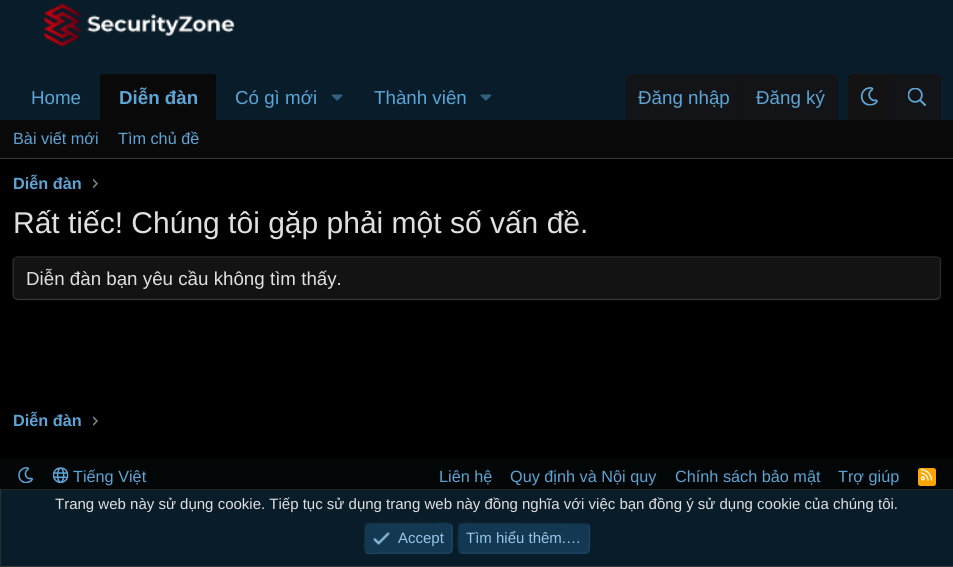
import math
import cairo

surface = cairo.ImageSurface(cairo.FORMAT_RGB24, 953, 567)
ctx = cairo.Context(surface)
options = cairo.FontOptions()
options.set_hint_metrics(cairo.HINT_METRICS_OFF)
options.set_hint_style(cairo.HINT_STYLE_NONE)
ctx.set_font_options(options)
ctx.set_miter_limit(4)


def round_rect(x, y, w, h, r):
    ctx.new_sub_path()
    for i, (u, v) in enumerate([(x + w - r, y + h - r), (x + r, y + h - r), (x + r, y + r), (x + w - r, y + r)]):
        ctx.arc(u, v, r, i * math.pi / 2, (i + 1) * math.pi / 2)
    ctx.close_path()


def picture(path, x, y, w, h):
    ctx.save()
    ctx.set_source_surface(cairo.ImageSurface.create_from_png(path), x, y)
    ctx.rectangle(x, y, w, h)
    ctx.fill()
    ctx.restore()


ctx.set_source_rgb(0, 0, 0)
ctx.paint()
ctx.set_source_rgb(0.039, 0.11, 0.161)
ctx.rectangle(0, 0, 953, 120)
ctx.fill()
picture("img1.png", 43, 3, 192, 45)
ctx.select_font_face("Liberation Sans")
ctx.set_font_size(18.75)
ctx.set_source_rgb(0.361, 0.647, 0.839)
ctx.move_to(31, 104)
ctx.show_text("Home")
ctx.set_source_rgb(0.039, 0.039, 0.039)
ctx.new_path()
ctx.move_to(102.5, 74)
ctx.line_to(213.5, 74)
ctx.curve_to(215, 74, 216, 75, 216, 76.5)
ctx.line_to(216, 120)
ctx.line_to(100, 120)
ctx.line_to(100, 76.5)
ctx.curve_to(100, 75, 101, 74, 102.5, 74)
ctx.close_path()
ctx.fill()
ctx.select_font_face("Liberation Sans", cairo.FONT_SLANT_NORMAL, cairo.FONT_WEIGHT_BOLD)
ctx.set_source_rgb(0.361, 0.647, 0.839)
ctx.move_to(119, 104)
ctx.show_text("Diễn đàn")
ctx.select_font_face("Liberation Sans")
ctx.move_to(235, 104)
ctx.show_text("Có gì mới")
picture("img2.png", 331, 94, 12, 7)
ctx.move_to(374, 104)
ctx.show_text("Thành viên")
picture("img3.png", 480, 94, 12, 7)
ctx.set_source_rgb(0.075, 0.082, 0.09)
ctx.new_path()
ctx.move_to(631, 74)
ctx.line_to(833, 74)
ctx.curve_to(836, 74, 838, 76, 838, 79)
ctx.line_to(838, 120)
ctx.line_to(626, 120)
ctx.line_to(626, 79)
ctx.curve_to(626, 76, 628, 74, 631, 74)
ctx.close_path()
ctx.fill()
ctx.set_source_rgb(0.361, 0.647, 0.839)
ctx.move_to(638, 104)
ctx.show_text("Đăng nhập")
ctx.set_source_rgb(0.078, 0.078, 0.078)
ctx.rectangle(743, 74, 1, 46)
ctx.fill()
ctx.set_source_rgb(0.361, 0.647, 0.839)
ctx.move_to(756, 104)
ctx.show_text("Đăng ký")
ctx.set_source_rgb(0.075, 0.082, 0.09)
ctx.new_path()
ctx.move_to(853, 74)
ctx.line_to(936, 74)
ctx.curve_to(939, 74, 941, 76, 941, 79)
ctx.line_to(941, 120)
ctx.line_to(848, 120)
ctx.line_to(848, 79)
ctx.curve_to(848, 76, 850, 74, 853, 74)
ctx.close_path()
ctx.fill()
ctx.set_source_rgba(0.078, 0.078, 0.078, 0.85)
ctx.new_path()
ctx.move_to(853, 74)
ctx.line_to(886, 74)
ctx.curve_to(889, 74, 891, 76, 891, 79)
ctx.line_to(891, 120)
ctx.line_to(848, 120)
ctx.line_to(848, 79)
ctx.curve_to(848, 76, 850, 74, 853, 74)
ctx.close_path()
ctx.fill()
picture("img4.png", 860, 87, 18, 19)
ctx.set_source_rgb(0.078, 0.078, 0.078)
ctx.rectangle(891, 74, 1, 46)
ctx.fill()
picture("img5.png", 908, 88, 18, 18)
ctx.set_source_rgb(0.039, 0.039, 0.039)
ctx.rectangle(0, 120, 953, 38)
ctx.fill()
ctx.set_source_rgb(0.22, 0.22, 0.22)
ctx.rectangle(0, 158, 953, 1)
ctx.fill()
ctx.set_font_size(16.25)
ctx.set_source_rgb(0.361, 0.647, 0.839)
ctx.move_to(13, 144)
ctx.show_text("Bài viết mới")
ctx.move_to(118, 144)
ctx.show_text("Tìm chủ đề")
ctx.select_font_face("Liberation Sans", cairo.FONT_SLANT_NORMAL, cairo.FONT_WEIGHT_BOLD)
ctx.move_to(13, 189)
ctx.show_text("Diễn đàn")
picture("img6.png", 93, 179, 5, 9)
ctx.select_font_face("Liberation Sans")
ctx.set_font_size(30)
ctx.set_source_rgb(0.878, 0.878, 0.878)
ctx.move_to(13, 233)
ctx.show_text("Rất tiếc! Chúng tôi gặp phải một số vấn đề.")
ctx.set_source_rgb(0.078, 0.078, 0.078)
round_rect(13, 256, 928, 44, 5)
ctx.fill()
ctx.new_path()
ctx.move_to(14.5, 258)
ctx.line_to(17.5, 257)
ctx.line_to(936, 257)
ctx.line_to(939.5, 258)
ctx.set_source_rgb(0.141, 0.141, 0.141)
ctx.set_line_width(1.2)
ctx.stroke()
ctx.new_path()
ctx.move_to(939.5, 258)
ctx.curve_to(940, 259, 940.5, 260, 940.5, 261)
ctx.line_to(940.5, 295)
ctx.curve_to(940.5, 296, 940, 297.5, 939.5, 298)
ctx.set_source_rgb(0.18, 0.18, 0.18)
ctx.stroke()
ctx.new_path()
ctx.move_to(939.5, 298)
ctx.line_to(936, 299.5)
ctx.line_to(17.5, 299.5)
ctx.line_to(14.5, 298)
ctx.set_source_rgb(0.22, 0.22, 0.22)
ctx.stroke()
ctx.new_path()
ctx.move_to(14.5, 298)
ctx.curve_to(13.5, 297.5, 13, 296, 13, 295)
ctx.line_to(13, 261)
ctx.curve_to(13, 260, 13.5, 259, 14.5, 258)
ctx.set_source_rgb(0.18, 0.18, 0.18)
ctx.stroke()
ctx.set_font_size(18.75)
ctx.set_source_rgb(0.878, 0.878, 0.878)
ctx.move_to(26, 285)
ctx.show_text("Diễn đàn bạn yêu cầu không tìm thấy.")
ctx.select_font_face("Liberation Sans", cairo.FONT_SLANT_NORMAL, cairo.FONT_WEIGHT_BOLD)
ctx.set_font_size(16.25)
ctx.set_source_rgb(0.361, 0.647, 0.839)
ctx.move_to(13, 426)
ctx.show_text("Diễn đàn")
picture("img7.png", 93, 416, 5, 10)
ctx.set_source_rgb(0.008, 0.024, 0.031)
ctx.rectangle(0, 458, 953, 31)
ctx.fill()
picture("img8.png", 18, 467, 15, 16)
picture("img9.png", 52, 467, 17, 16)
ctx.select_font_face("Liberation Sans")
ctx.set_source_rgb(0.361, 0.647, 0.839)
ctx.move_to(73, 482)
ctx.show_text("Tiếng Việt")
ctx.move_to(439, 482)
ctx.show_text("Liên hệ")
ctx.move_to(510, 482)
ctx.show_text("Quy định và Nội quy")
ctx.move_to(675, 482)
ctx.show_text("Chính sách bảo mật")
ctx.move_to(838, 482)
ctx.show_text("Trợ giúp")
ctx.set_source_rgb(1, 0.647, 0)
round_rect(918, 468, 18, 18, 2.5)
ctx.fill()
picture("img10.png", 920, 469, 13, 12)
ctx.set_source_rgb(0.039, 0.11, 0.161)
ctx.rectangle(1, 490, 952, 76)
ctx.fill()
ctx.set_source_rgb(0.141, 0.141, 0.141)
ctx.rectangle(0, 489, 953, 1)
ctx.fill()
ctx.set_source_rgb(0.22, 0.22, 0.22)
ctx.rectangle(0, 566, 953, 1)
ctx.fill()
ctx.set_source_rgb(0.18, 0.18, 0.18)
ctx.rectangle(0, 489, 1, 78)
ctx.fill()
ctx.set_font_size(15)
ctx.set_source_rgb(0.878, 0.878, 0.878)
ctx.move_to(55, 509)
ctx.show_text("Trang web này sử dụng cookie. Tiếp tục sử dụng trang web này đồng nghĩa với việc bạn đồng ý sử dụng cookie của chúng tôi.")
ctx.set_source_rgb(0.078, 0.22, 0.322)
round_rect(364, 523, 89, 31, 5)
ctx.fill()
ctx.new_path()
ctx.move_to(450.5, 524.5)
ctx.curve_to(453, 527, 452, 535, 452, 538)
ctx.curve_to(452, 556, 453.5, 553, 434.5, 553)
ctx.line_to(382, 553)
ctx.curve_to(380.5, 553, 369, 555, 365.5, 552)
ctx.set_source_rgb(0.102, 0.275, 0.4)
ctx.stroke()
ctx.new_path()
ctx.move_to(365.5, 552)
ctx.curve_to(363, 549, 364.5, 541.5, 364.5, 538)
ctx.curve_to(364.5, 520.5, 363, 523, 382, 523)
ctx.line_to(434.5, 523)
ctx.curve_to(435.5, 523, 447.5, 521, 450.5, 524.5)
ctx.set_source_rgb(0.059, 0.165, 0.239)
ctx.stroke()
picture("img11.png", 373, 532, 17, 13)
ctx.set_source_rgb(0.6, 0.769, 0.902)
ctx.move_to(398, 543)
ctx.show_text("Accept")
ctx.set_source_rgb(0.078, 0.22, 0.322)
round_rect(458, 523, 132, 31, 5)
ctx.fill()
ctx.new_path()
ctx.move_to(588, 524.5)
ctx.curve_to(590.5, 527, 589.5, 535, 589.5, 538)
ctx.line_to(589.5, 545)
ctx.curve_to(589.5, 548.5, 589.5, 553, 585, 553)
ctx.line_to(461, 553)
ctx.line_to(459.5, 552)
ctx.set_source_rgb(0.102, 0.275, 0.4)
ctx.stroke()
ctx.new_path()
ctx.move_to(459.5, 552)
ctx.curve_to(457, 549, 458, 541.5, 458, 538)
ctx.line_to(458, 531)
ctx.curve_to(458, 528, 458, 523, 462.5, 523)
ctx.line_to(586.5, 523.5)
ctx.line_to(588, 524.5)
ctx.set_source_rgb(0.059, 0.165, 0.239)
ctx.stroke()
ctx.set_source_rgb(0.6, 0.769, 0.902)
ctx.move_to(466, 543)
ctx.show_text("Tìm hiểu thêm.…")
surface.write_to_png("page.png")
